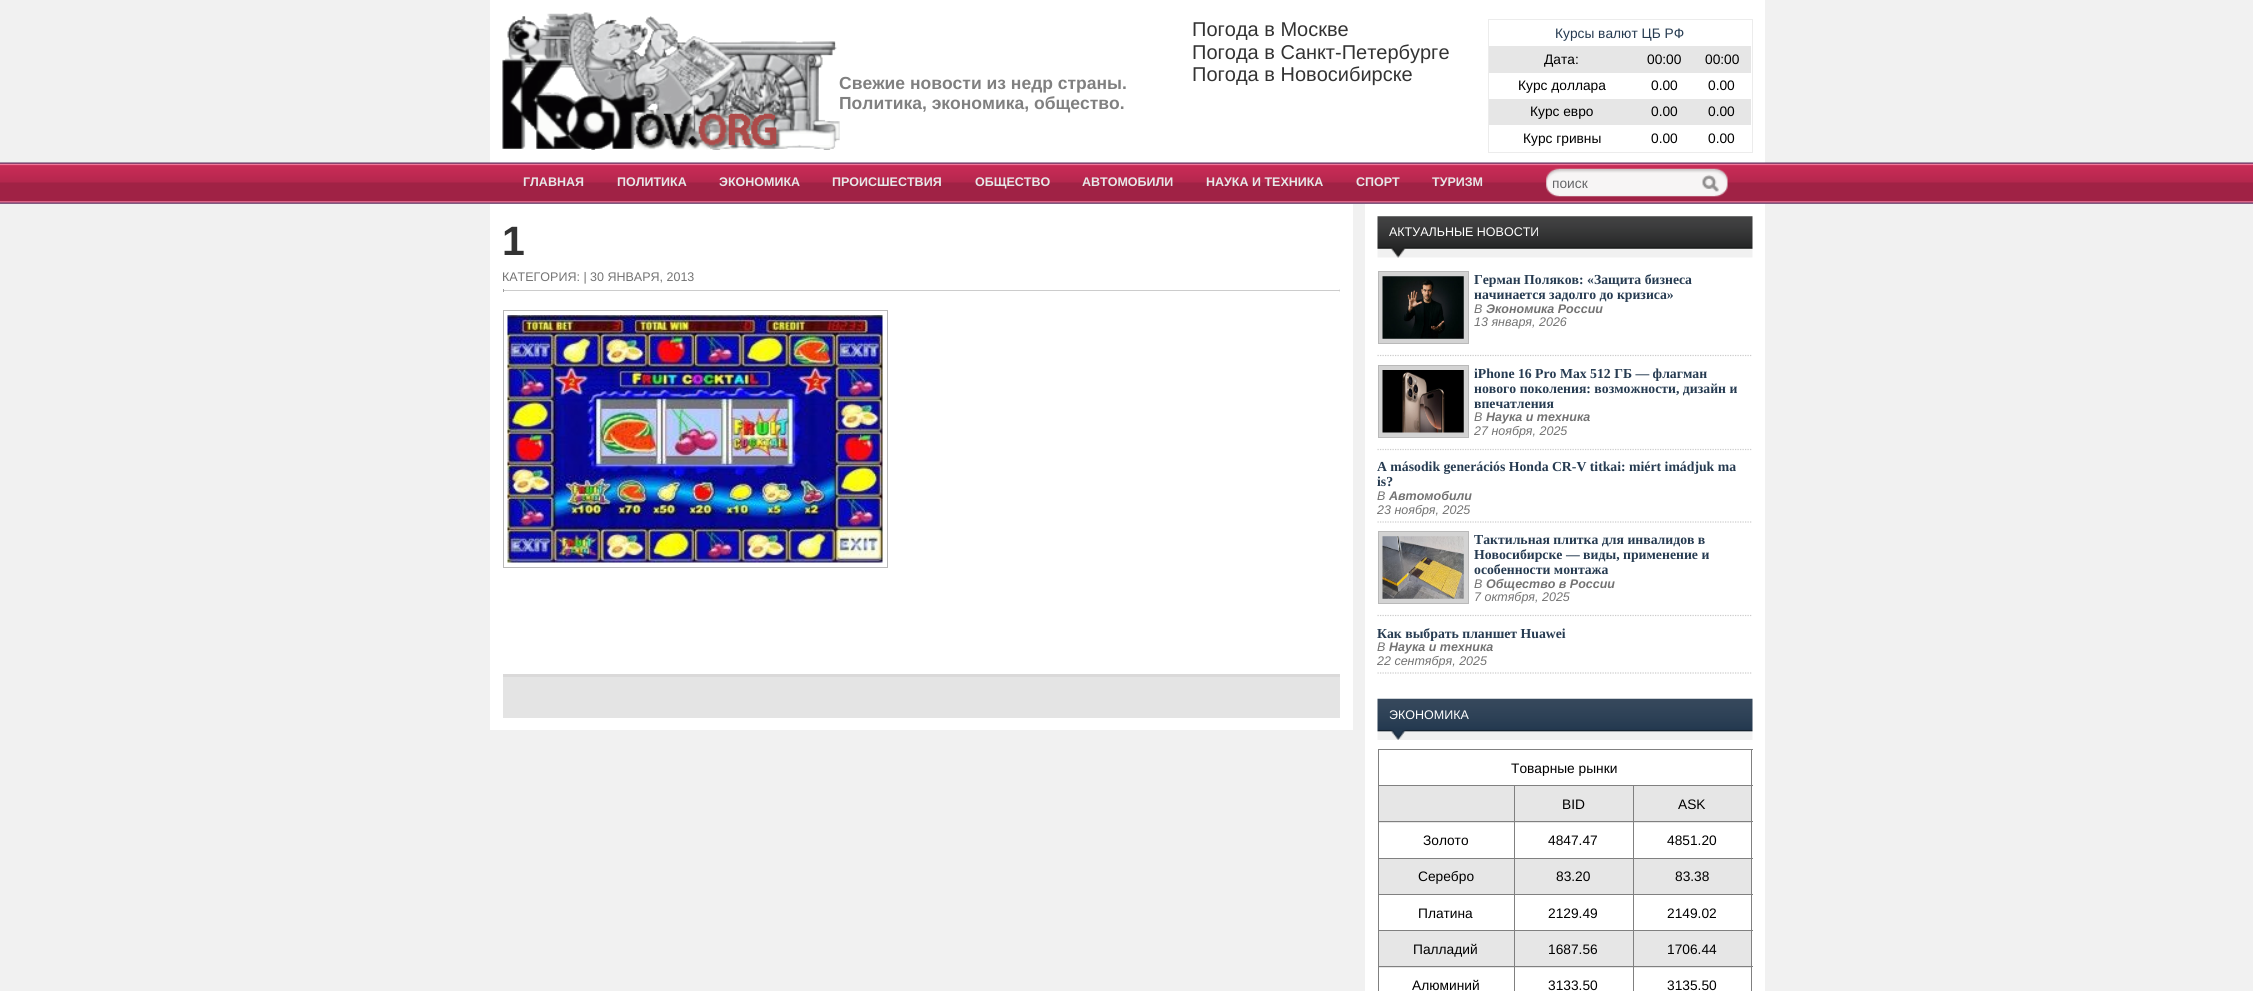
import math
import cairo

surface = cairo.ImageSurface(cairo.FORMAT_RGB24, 2253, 991)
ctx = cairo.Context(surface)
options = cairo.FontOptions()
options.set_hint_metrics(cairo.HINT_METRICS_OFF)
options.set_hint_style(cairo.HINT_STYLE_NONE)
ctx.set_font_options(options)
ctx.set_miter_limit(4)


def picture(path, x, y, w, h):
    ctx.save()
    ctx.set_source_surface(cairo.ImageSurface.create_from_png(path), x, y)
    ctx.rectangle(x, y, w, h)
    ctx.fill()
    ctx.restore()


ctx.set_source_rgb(0.945, 0.945, 0.945)
ctx.paint()
ctx.set_source_rgb(1, 1, 1)
ctx.rectangle(490, 0, 1275, 163)
ctx.fill()
picture("img1.png", 502, 12, 338, 138)
ctx.select_font_face("Liberation Sans", cairo.FONT_SLANT_NORMAL, cairo.FONT_WEIGHT_BOLD)
ctx.set_font_size(17.5)
ctx.set_source_rgb(0.502, 0.502, 0.502)
ctx.move_to(839, 89)
ctx.show_text("Свежие новости из недр страны.")
ctx.move_to(839, 109)
ctx.show_text("Политика, экономика, общество.")
ctx.select_font_face("Liberation Sans")
ctx.set_font_size(20)
ctx.set_source_rgb(0.2, 0.2, 0.2)
ctx.move_to(1192, 36)
ctx.show_text("Погода в Москве")
ctx.move_to(1192, 59)
ctx.show_text("Погода в Санкт-Петербурге")
ctx.move_to(1192, 81)
ctx.show_text("Погода в Новосибирске")
ctx.rectangle(1488.5, 19.5, 264, 133)
ctx.set_source_rgb(0.925, 0.925, 0.925)
ctx.set_line_width(1)
ctx.stroke()
ctx.set_font_size(13.75)
ctx.set_source_rgb(0.149, 0.231, 0.318)
ctx.move_to(1555, 38)
ctx.show_text("Курсы валют ЦБ РФ")
ctx.set_source_rgb(0.902, 0.902, 0.902)
ctx.rectangle(1489, 46, 262, 27)
ctx.fill()
ctx.set_source_rgb(0, 0, 0)
ctx.move_to(1544, 64)
ctx.show_text("Дата:")
ctx.move_to(1647, 64)
ctx.show_text("00:00")
ctx.move_to(1705, 64)
ctx.show_text("00:00")
ctx.move_to(1518, 90)
ctx.show_text("Курс доллара")
ctx.move_to(1651, 90)
ctx.show_text("0.00")
ctx.move_to(1708, 90)
ctx.show_text("0.00")
ctx.set_source_rgb(0.902, 0.902, 0.902)
ctx.rectangle(1489, 99, 262, 26)
ctx.fill()
ctx.set_source_rgb(0, 0, 0)
ctx.move_to(1530, 116)
ctx.show_text("Курс евро")
ctx.move_to(1651, 116)
ctx.show_text("0.00")
ctx.move_to(1708, 116)
ctx.show_text("0.00")
ctx.move_to(1523, 143)
ctx.show_text("Курс гривны")
ctx.move_to(1651, 143)
ctx.show_text("0.00")
ctx.move_to(1708, 143)
ctx.show_text("0.00")
picture("img2.png", 0, 162, 2253, 42)
ctx.select_font_face("Liberation Sans", cairo.FONT_SLANT_NORMAL, cairo.FONT_WEIGHT_BOLD)
ctx.set_font_size(12.5)
ctx.set_source_rgb(0.906, 0.906, 0.906)
ctx.move_to(523, 186)
ctx.show_text("ГЛАВНАЯ")
ctx.move_to(617, 186)
ctx.show_text("ПОЛИТИКА")
ctx.move_to(719, 186)
ctx.show_text("ЭКОНОМИКА")
ctx.move_to(832, 186)
ctx.show_text("ПРОИСШЕСТВИЯ")
ctx.move_to(975, 186)
ctx.show_text("ОБЩЕСТВО")
ctx.move_to(1082, 186)
ctx.show_text("АВТОМОБИЛИ")
ctx.move_to(1206, 186)
ctx.show_text("НАУКА И ТЕХНИКА")
ctx.move_to(1356, 186)
ctx.show_text("СПОРТ")
ctx.move_to(1432, 186)
ctx.show_text("ТУРИЗМ")
picture("img3.png", 1546, 168, 182, 29)
ctx.save()
ctx.rectangle(1553, 176, 137, 15)
ctx.clip()
ctx.select_font_face("Liberation Sans")
ctx.set_font_size(13.75)
ctx.set_source_rgb(0.396, 0.4, 0.408)
ctx.move_to(1552, 188)
ctx.show_text("поиск")
ctx.restore()
ctx.set_source_rgb(1, 1, 1)
ctx.rectangle(490, 204, 863, 526)
ctx.fill()
ctx.set_font_size(41)
ctx.set_source_rgb(0.2, 0.2, 0.2)
ctx.move_to(502, 255)
ctx.show_text("1")
ctx.select_font_face("Liberation Sans")
ctx.set_font_size(12.5)
ctx.set_source_rgb(0.451, 0.451, 0.451)
ctx.move_to(502, 281)
ctx.show_text("КАТЕГОРИЯ: | 30 ЯНВАРЯ, 2013")
ctx.set_source_rgb(0.933, 0.933, 0.933)
ctx.rectangle(1339, 289, 1, 3)
ctx.fill()
ctx.set_source_rgb(0.8, 0.8, 0.8)
ctx.rectangle(503, 290, 837, 1)
ctx.fill()
ctx.set_source_rgb(0.624, 0.624, 0.624)
ctx.rectangle(503, 289, 1, 3)
ctx.fill()
ctx.rectangle(503.5, 310.5, 384, 257)
ctx.set_source_rgb(0.725, 0.725, 0.725)
ctx.stroke()
picture("img4.png", 507, 315, 376, 248)
ctx.set_source_rgb(0.894, 0.894, 0.894)
ctx.rectangle(503, 677, 837, 41)
ctx.fill()
ctx.set_source_rgb(0.855, 0.851, 0.851)
ctx.rectangle(503, 674, 837, 3)
ctx.fill()
ctx.set_source_rgb(1, 1, 1)
ctx.rectangle(1365, 204, 400, 787)
ctx.fill()
picture("img5.png", 1377, 216, 376, 42)
ctx.move_to(1389, 236)
ctx.show_text("АКТУАЛЬНЫЕ НОВОСТИ")
ctx.new_path()
ctx.move_to(1377.5, 355.5)
ctx.line_to(1752.5, 355.5)
ctx.set_source_rgb(0.8, 0.8, 0.8)
ctx.set_line_width(1.2)
ctx.set_dash([1.25, 1.25])
ctx.stroke()
ctx.set_source_rgb(0.827, 0.827, 0.827)
ctx.rectangle(1378.5, 271.5, 90, 72)
ctx.fill_preserve()
ctx.set_source_rgb(0.725, 0.725, 0.725)
ctx.set_line_width(1)
ctx.set_dash([])
ctx.stroke()
picture("img6.png", 1382, 276, 82, 63)
ctx.select_font_face("Liberation Serif", cairo.FONT_SLANT_NORMAL, cairo.FONT_WEIGHT_BOLD)
ctx.set_font_size(13.75)
ctx.set_source_rgb(0.149, 0.231, 0.318)
ctx.move_to(1474, 284)
ctx.show_text("Герман Поляков: «Защита бизнеса")
ctx.move_to(1474, 299)
ctx.show_text("начинается задолго до кризиса»")
ctx.select_font_face("Liberation Sans", cairo.FONT_SLANT_ITALIC)
ctx.set_font_size(12.5)
ctx.set_source_rgb(0.451, 0.451, 0.451)
ctx.move_to(1474, 313)
ctx.show_text("В")
ctx.select_font_face("Liberation Sans", cairo.FONT_SLANT_ITALIC, cairo.FONT_WEIGHT_BOLD)
ctx.move_to(1486, 313)
ctx.show_text("Экономика России")
ctx.select_font_face("Liberation Sans", cairo.FONT_SLANT_ITALIC)
ctx.move_to(1474, 326)
ctx.show_text("13 января, 2026")
ctx.new_path()
ctx.move_to(1377.5, 449.5)
ctx.line_to(1752.5, 449.5)
ctx.set_source_rgb(0.8, 0.8, 0.8)
ctx.set_line_width(1.2)
ctx.set_dash([1.25, 1.25])
ctx.stroke()
ctx.set_source_rgb(0.827, 0.827, 0.827)
ctx.rectangle(1378.5, 365.5, 90, 72)
ctx.fill_preserve()
ctx.set_source_rgb(0.725, 0.725, 0.725)
ctx.set_line_width(1)
ctx.set_dash([])
ctx.stroke()
picture("img7.png", 1382, 370, 82, 63)
ctx.select_font_face("Liberation Serif", cairo.FONT_SLANT_NORMAL, cairo.FONT_WEIGHT_BOLD)
ctx.set_font_size(13.75)
ctx.set_source_rgb(0.149, 0.231, 0.318)
ctx.move_to(1474, 378)
ctx.show_text("iPhone 16 Pro Max 512 ГБ — флагман")
ctx.move_to(1474, 393)
ctx.show_text("нового поколения: возможности, дизайн и")
ctx.move_to(1474, 408)
ctx.show_text("впечатления")
ctx.select_font_face("Liberation Sans", cairo.FONT_SLANT_ITALIC)
ctx.set_font_size(12.5)
ctx.set_source_rgb(0.451, 0.451, 0.451)
ctx.move_to(1474, 421)
ctx.show_text("В")
ctx.select_font_face("Liberation Sans", cairo.FONT_SLANT_ITALIC, cairo.FONT_WEIGHT_BOLD)
ctx.move_to(1486, 421)
ctx.show_text("Наука и техника")
ctx.select_font_face("Liberation Sans", cairo.FONT_SLANT_ITALIC)
ctx.move_to(1474, 435)
ctx.show_text("27 ноября, 2025")
ctx.new_path()
ctx.move_to(1377.5, 522)
ctx.line_to(1752.5, 522)
ctx.set_source_rgb(0.8, 0.8, 0.8)
ctx.set_line_width(1.2)
ctx.set_dash([1.25, 1.25])
ctx.stroke()
ctx.select_font_face("Liberation Serif", cairo.FONT_SLANT_NORMAL, cairo.FONT_WEIGHT_BOLD)
ctx.set_font_size(13.75)
ctx.set_source_rgb(0.149, 0.231, 0.318)
ctx.move_to(1377, 471)
ctx.show_text("A második generációs Honda CR-V titkai: miért imádjuk ma")
ctx.move_to(1377, 486)
ctx.show_text("is?")
ctx.select_font_face("Liberation Sans", cairo.FONT_SLANT_ITALIC)
ctx.set_font_size(12.5)
ctx.set_source_rgb(0.451, 0.451, 0.451)
ctx.move_to(1377, 500)
ctx.show_text("В")
ctx.select_font_face("Liberation Sans", cairo.FONT_SLANT_ITALIC, cairo.FONT_WEIGHT_BOLD)
ctx.move_to(1389, 500)
ctx.show_text("Автомобили")
ctx.select_font_face("Liberation Sans", cairo.FONT_SLANT_ITALIC)
ctx.move_to(1377, 514)
ctx.show_text("23 ноября, 2025")
ctx.new_path()
ctx.move_to(1377.5, 615.5)
ctx.line_to(1752.5, 615.5)
ctx.set_source_rgb(0.8, 0.8, 0.8)
ctx.stroke()
ctx.set_source_rgb(0.827, 0.827, 0.827)
ctx.rectangle(1378.5, 531.5, 90, 72)
ctx.fill_preserve()
ctx.set_source_rgb(0.725, 0.725, 0.725)
ctx.set_line_width(1)
ctx.set_dash([])
ctx.stroke()
picture("img8.png", 1382, 536, 82, 63)
ctx.select_font_face("Liberation Serif", cairo.FONT_SLANT_NORMAL, cairo.FONT_WEIGHT_BOLD)
ctx.set_font_size(13.75)
ctx.set_source_rgb(0.149, 0.231, 0.318)
ctx.move_to(1474, 544)
ctx.show_text("Тактильная плитка для инвалидов в")
ctx.move_to(1474, 559)
ctx.show_text("Новосибирске — виды, применение и")
ctx.move_to(1474, 574)
ctx.show_text("особенности монтажа")
ctx.select_font_face("Liberation Sans", cairo.FONT_SLANT_ITALIC)
ctx.set_font_size(12.5)
ctx.set_source_rgb(0.451, 0.451, 0.451)
ctx.move_to(1474, 588)
ctx.show_text("В")
ctx.select_font_face("Liberation Sans", cairo.FONT_SLANT_ITALIC, cairo.FONT_WEIGHT_BOLD)
ctx.move_to(1486, 588)
ctx.show_text("Общество в России")
ctx.select_font_face("Liberation Sans", cairo.FONT_SLANT_ITALIC)
ctx.move_to(1474, 601)
ctx.show_text("7 октября, 2025")
ctx.new_path()
ctx.move_to(1377.5, 673)
ctx.line_to(1752.5, 673)
ctx.set_source_rgb(0.8, 0.8, 0.8)
ctx.set_line_width(1.2)
ctx.set_dash([1.25, 1.25])
ctx.stroke()
ctx.select_font_face("Liberation Serif", cairo.FONT_SLANT_NORMAL, cairo.FONT_WEIGHT_BOLD)
ctx.set_font_size(13.75)
ctx.set_source_rgb(0.149, 0.231, 0.318)
ctx.move_to(1377, 638)
ctx.show_text("Как выбрать планшет Huawei")
ctx.select_font_face("Liberation Sans", cairo.FONT_SLANT_ITALIC)
ctx.set_font_size(12.5)
ctx.set_source_rgb(0.451, 0.451, 0.451)
ctx.move_to(1377, 651)
ctx.show_text("В")
ctx.select_font_face("Liberation Sans", cairo.FONT_SLANT_ITALIC, cairo.FONT_WEIGHT_BOLD)
ctx.move_to(1389, 651)
ctx.show_text("Наука и техника")
ctx.select_font_face("Liberation Sans", cairo.FONT_SLANT_ITALIC)
ctx.move_to(1377, 665)
ctx.show_text("22 сентября, 2025")
picture("img9.png", 1377, 698, 376, 42)
ctx.select_font_face("Liberation Sans")
ctx.set_source_rgb(1, 1, 1)
ctx.move_to(1389, 719)
ctx.show_text("ЭКОНОМИКА")
ctx.set_source_rgb(0.502, 0.502, 0.502)
ctx.rectangle(1378, 749, 375, 1)
ctx.fill()
ctx.rectangle(1751, 749, 1, 242)
ctx.fill()
ctx.rectangle(1378, 749, 1, 242)
ctx.fill()
ctx.set_font_size(13.75)
ctx.set_source_rgb(0, 0, 0)
ctx.move_to(1511, 773)
ctx.show_text("Товарные рынки")
ctx.set_source_rgb(0.902, 0.902, 0.902)
ctx.rectangle(1379, 786, 372, 37)
ctx.fill()
ctx.set_source_rgb(0.502, 0.502, 0.502)
ctx.rectangle(1633, 785, 120, 1)
ctx.fill()
ctx.rectangle(1633, 821, 120, 1)
ctx.fill()
ctx.rectangle(1633, 858, 120, 1)
ctx.fill()
ctx.set_source_rgb(0.902, 0.902, 0.902)
ctx.rectangle(1379, 859, 372, 35)
ctx.fill()
ctx.set_source_rgb(0.502, 0.502, 0.502)
ctx.rectangle(1633, 894, 120, 1)
ctx.fill()
ctx.rectangle(1633, 930, 120, 1)
ctx.fill()
ctx.set_source_rgb(0.902, 0.902, 0.902)
ctx.rectangle(1379, 931, 372, 37)
ctx.fill()
ctx.set_source_rgb(0.502, 0.502, 0.502)
ctx.rectangle(1633, 966, 120, 1)
ctx.fill()
ctx.rectangle(1633, 966, 1, 25)
ctx.fill()
ctx.rectangle(1514, 966, 120, 1)
ctx.fill()
ctx.rectangle(1633, 930, 1, 38)
ctx.fill()
ctx.rectangle(1514, 930, 120, 1)
ctx.fill()
ctx.rectangle(1633, 894, 1, 37)
ctx.fill()
ctx.rectangle(1514, 894, 120, 1)
ctx.fill()
ctx.rectangle(1633, 858, 1, 37)
ctx.fill()
ctx.rectangle(1514, 858, 120, 1)
ctx.fill()
ctx.rectangle(1633, 821, 1, 38)
ctx.fill()
ctx.rectangle(1514, 821, 120, 1)
ctx.fill()
ctx.rectangle(1633, 785, 1, 38)
ctx.fill()
ctx.rectangle(1514, 785, 120, 1)
ctx.fill()
ctx.rectangle(1514, 966, 1, 25)
ctx.fill()
ctx.rectangle(1378, 966, 137, 1)
ctx.fill()
ctx.rectangle(1514, 930, 1, 38)
ctx.fill()
ctx.rectangle(1378, 930, 137, 1)
ctx.fill()
ctx.rectangle(1514, 894, 1, 37)
ctx.fill()
ctx.rectangle(1378, 894, 137, 1)
ctx.fill()
ctx.rectangle(1514, 858, 1, 37)
ctx.fill()
ctx.rectangle(1378, 858, 137, 1)
ctx.fill()
ctx.rectangle(1514, 821, 1, 38)
ctx.fill()
ctx.rectangle(1378, 821, 137, 1)
ctx.fill()
ctx.rectangle(1514, 785, 1, 38)
ctx.fill()
ctx.rectangle(1378, 785, 137, 1)
ctx.fill()
ctx.set_source_rgb(0, 0, 0)
ctx.move_to(1562, 809)
ctx.show_text("BID")
ctx.move_to(1678, 809)
ctx.show_text("ASK")
ctx.move_to(1423, 845)
ctx.show_text("Золото")
ctx.move_to(1548, 845)
ctx.show_text("4847.47")
ctx.move_to(1667, 845)
ctx.show_text("4851.20")
ctx.move_to(1418, 881)
ctx.show_text("Серебро")
ctx.move_to(1556, 881)
ctx.show_text("83.20")
ctx.move_to(1675, 881)
ctx.show_text("83.38")
ctx.move_to(1418, 918)
ctx.show_text("Платина")
ctx.move_to(1548, 918)
ctx.show_text("2129.49")
ctx.move_to(1667, 918)
ctx.show_text("2149.02")
ctx.move_to(1413, 954)
ctx.show_text("Палладий")
ctx.move_to(1548, 954)
ctx.show_text("1687.56")
ctx.move_to(1667, 954)
ctx.show_text("1706.44")
ctx.move_to(1412, 990)
ctx.show_text("Алюминий")
ctx.move_to(1548, 990)
ctx.show_text("3133.50")
ctx.move_to(1667, 990)
ctx.show_text("3135.50")
surface.write_to_png("page.png")
